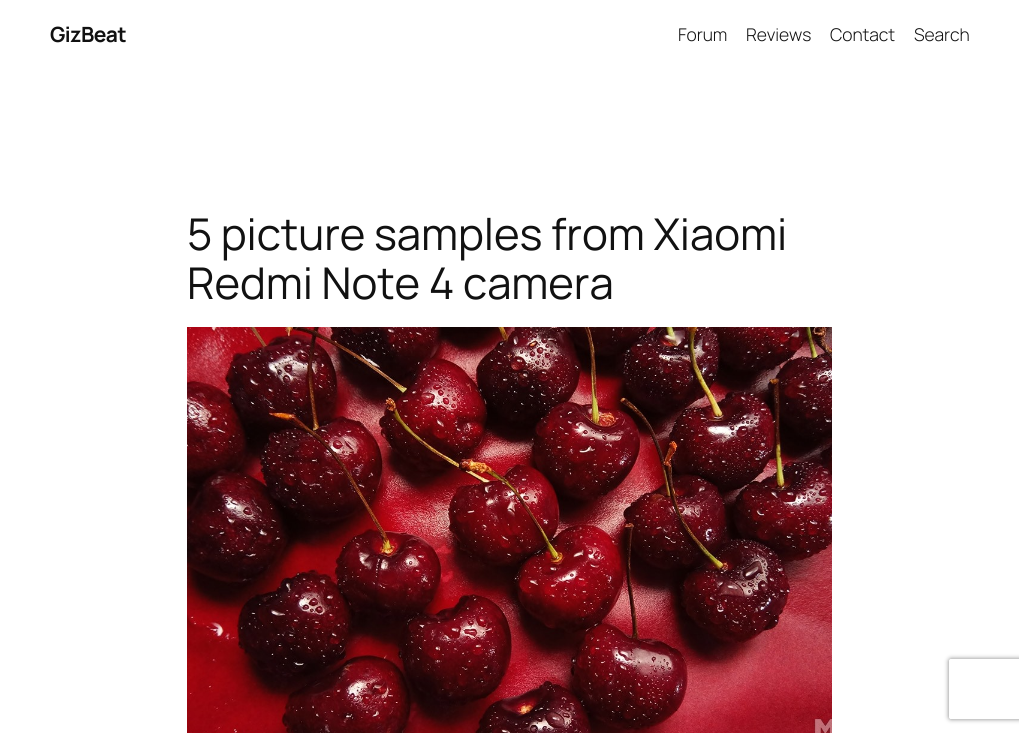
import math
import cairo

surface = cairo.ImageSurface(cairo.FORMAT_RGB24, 1019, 733)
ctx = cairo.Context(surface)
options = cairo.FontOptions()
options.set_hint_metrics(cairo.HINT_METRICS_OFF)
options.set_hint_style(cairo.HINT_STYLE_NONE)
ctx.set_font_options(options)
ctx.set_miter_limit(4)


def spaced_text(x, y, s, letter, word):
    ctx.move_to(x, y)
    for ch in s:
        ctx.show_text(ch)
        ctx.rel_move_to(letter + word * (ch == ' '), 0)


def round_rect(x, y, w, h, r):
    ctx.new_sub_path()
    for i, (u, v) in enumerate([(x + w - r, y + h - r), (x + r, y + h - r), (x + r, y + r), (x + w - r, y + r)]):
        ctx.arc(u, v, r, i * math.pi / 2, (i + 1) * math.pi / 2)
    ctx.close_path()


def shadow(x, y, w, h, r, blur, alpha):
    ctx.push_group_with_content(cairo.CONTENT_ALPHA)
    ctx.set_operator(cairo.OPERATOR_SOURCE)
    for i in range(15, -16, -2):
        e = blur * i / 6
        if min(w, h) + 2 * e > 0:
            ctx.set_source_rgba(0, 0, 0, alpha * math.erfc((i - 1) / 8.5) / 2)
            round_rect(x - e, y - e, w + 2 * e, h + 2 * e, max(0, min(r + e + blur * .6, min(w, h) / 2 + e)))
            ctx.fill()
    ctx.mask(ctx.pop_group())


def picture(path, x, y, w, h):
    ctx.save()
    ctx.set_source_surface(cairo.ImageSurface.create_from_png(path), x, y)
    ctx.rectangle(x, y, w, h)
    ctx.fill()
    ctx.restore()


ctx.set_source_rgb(1, 1, 1)
ctx.paint()
ctx.select_font_face("Manrope", cairo.FONT_SLANT_NORMAL, cairo.FONT_WEIGHT_BOLD)
ctx.set_font_size(21)
ctx.set_source_rgb(0.067, 0.067, 0.067)
spaced_text(50, 42, "GizBeat", -0.5, 0)
ctx.select_font_face("Manrope Light")
ctx.set_font_size(17.5)
spaced_text(678, 41, "Forum", -0.1, 0)
spaced_text(746, 41, "Reviews", -0.1, 0)
spaced_text(830, 41, "Contact", -0.1, 0)
spaced_text(914, 41, "Search", -0.1, 0)
ctx.select_font_face("Manrope")
ctx.set_font_size(43.75)
spaced_text(187, 250, "5 picture samples from Xiaomi", -0.1, 0)
spaced_text(187, 299, "Redmi Note 4 camera", -0.1, 0)
picture("img1.png", 187, 327, 645, 406)
ctx.save()
ctx.set_fill_rule(cairo.FILL_RULE_EVEN_ODD)
ctx.new_path()
ctx.move_to(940, 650)
ctx.line_to(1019, 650)
ctx.line_to(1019, 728)
ctx.line_to(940, 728)
ctx.close_path()
ctx.move_to(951, 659)
ctx.line_to(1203, 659)
ctx.curve_to(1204, 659, 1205, 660, 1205, 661)
ctx.line_to(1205, 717)
ctx.curve_to(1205, 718, 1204, 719, 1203, 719)
ctx.line_to(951, 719)
ctx.curve_to(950, 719, 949, 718, 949, 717)
ctx.line_to(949, 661)
ctx.curve_to(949, 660, 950, 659, 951, 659)
ctx.close_path()
ctx.clip()
ctx.set_source_rgb(0.502, 0.502, 0.502)
shadow(949, 659, 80, 60, 2, 2.5, 1)
ctx.restore()
surface.write_to_png("page.png")
